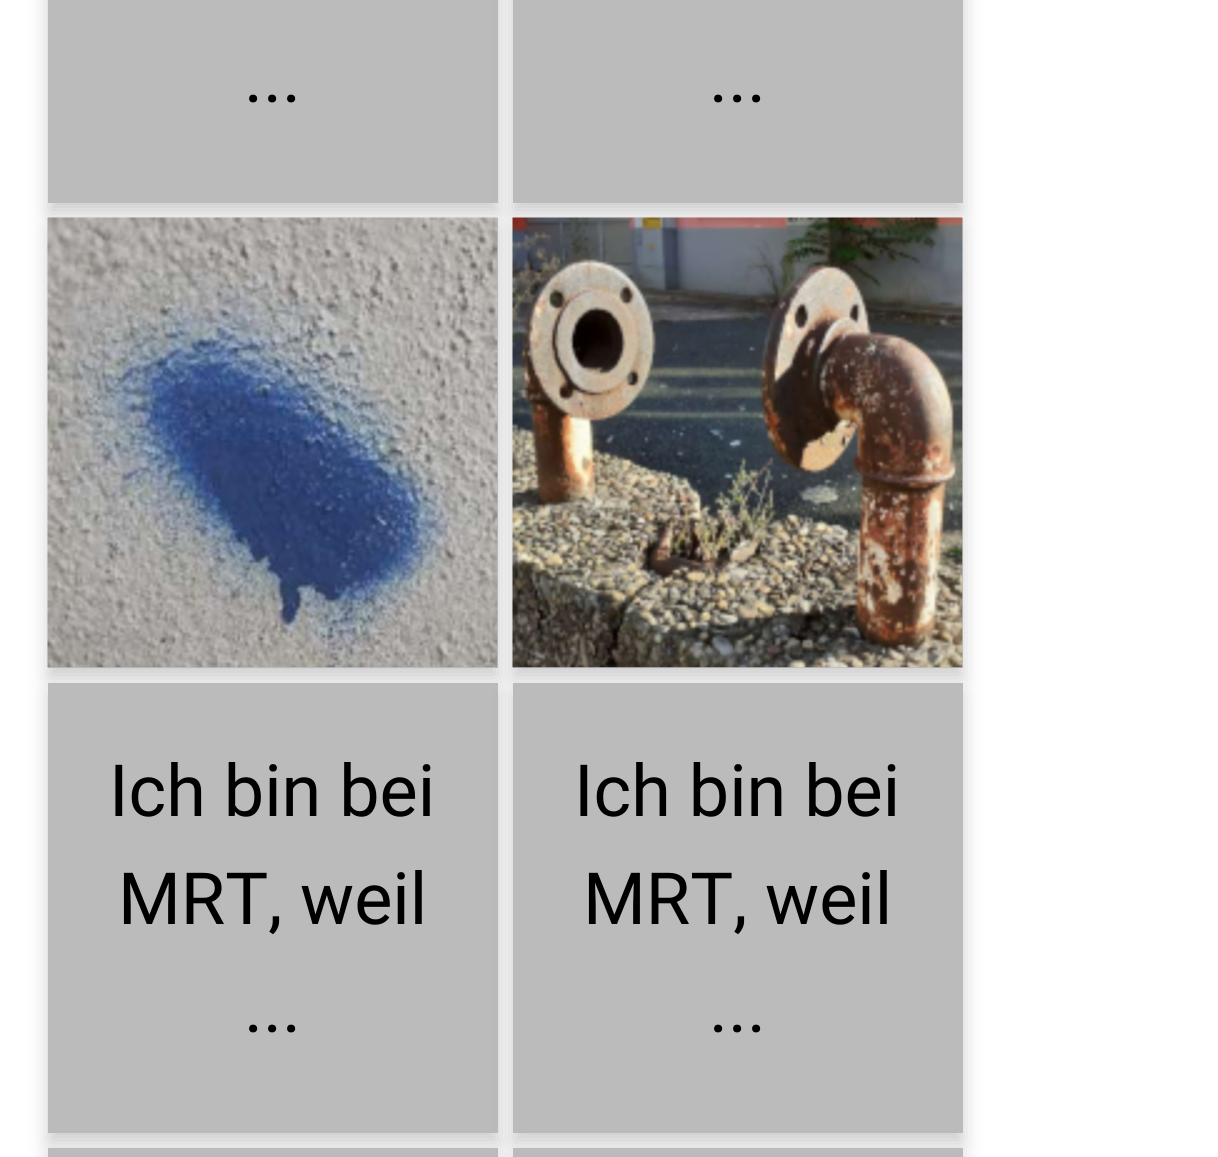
import math
import cairo

surface = cairo.ImageSurface(cairo.FORMAT_RGB24, 1218, 1157)
ctx = cairo.Context(surface)
options = cairo.FontOptions()
options.set_hint_metrics(cairo.HINT_METRICS_OFF)
options.set_hint_style(cairo.HINT_STYLE_NONE)
ctx.set_font_options(options)
ctx.set_miter_limit(4)


def round_rect(x, y, w, h, r):
    ctx.new_sub_path()
    for i, (u, v) in enumerate([(x + w - r, y + h - r), (x + r, y + h - r), (x + r, y + r), (x + w - r, y + r)]):
        ctx.arc(u, v, r, i * math.pi / 2, (i + 1) * math.pi / 2)
    ctx.close_path()


def shadow(x, y, w, h, r, blur, alpha):
    ctx.push_group_with_content(cairo.CONTENT_ALPHA)
    ctx.set_operator(cairo.OPERATOR_SOURCE)
    for i in range(15, -16, -2):
        e = blur * i / 6
        if min(w, h) + 2 * e > 0:
            ctx.set_source_rgba(0, 0, 0, alpha * math.erfc((i - 1) / 8.5) / 2)
            round_rect(x - e, y - e, w + 2 * e, h + 2 * e, max(0, min(r + e + blur * .6, min(w, h) / 2 + e)))
            ctx.fill()
    ctx.mask(ctx.pop_group())


def picture(path, x, y, w, h):
    ctx.save()
    ctx.set_source_surface(cairo.ImageSurface.create_from_png(path), x, y)
    ctx.rectangle(x, y, w, h)
    ctx.fill()
    ctx.restore()


ctx.set_source_rgb(1, 1, 1)
ctx.paint()
ctx.set_source_rgb(0, 0, 0)
shadow(48, -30, 450, 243, 0, 10, 0.2)
ctx.set_source_rgb(0.733, 0.733, 0.733)
ctx.rectangle(48, 0, 450, 203)
ctx.fill()
ctx.select_font_face("Roboto")
ctx.set_font_size(72)
ctx.set_source_rgb(0, 0, 0)
ctx.move_to(244, 102)
ctx.show_text("...")
ctx.set_source_rgb(0, 0, 0)
shadow(513, -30, 450, 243, 0, 10, 0.2)
ctx.set_source_rgb(0.733, 0.733, 0.733)
ctx.rectangle(513, 0, 450, 203)
ctx.fill()
ctx.set_source_rgb(0, 0, 0)
ctx.move_to(709, 102)
ctx.show_text("...")
ctx.set_source_rgb(0, 0, 0)
shadow(48, 228, 450, 450, 0, 10, 0.2)
ctx.set_source_rgb(0.733, 0.733, 0.733)
ctx.rectangle(48, 218, 450, 450)
ctx.fill()
picture("img1.png", 47, 217, 451, 451)
ctx.set_source_rgb(0, 0, 0)
shadow(513, 228, 450, 450, 0, 10, 0.2)
ctx.set_source_rgb(0.733, 0.733, 0.733)
ctx.rectangle(513, 218, 450, 450)
ctx.fill()
picture("img2.png", 512, 217, 451, 451)
ctx.set_source_rgb(0, 0, 0)
shadow(48, 693, 450, 450, 0, 10, 0.2)
ctx.set_source_rgb(0.733, 0.733, 0.733)
ctx.rectangle(48, 683, 450, 450)
ctx.fill()
ctx.set_source_rgb(0, 0, 0)
ctx.move_to(109, 816)
ctx.show_text("Ich bin bei")
ctx.move_to(118, 924)
ctx.show_text("MRT, weil")
ctx.move_to(244, 1032)
ctx.show_text("...")
ctx.set_source_rgb(0, 0, 0)
shadow(513, 693, 450, 450, 0, 10, 0.2)
ctx.set_source_rgb(0.733, 0.733, 0.733)
ctx.rectangle(513, 683, 450, 450)
ctx.fill()
ctx.set_source_rgb(0, 0, 0)
ctx.move_to(574, 816)
ctx.show_text("Ich bin bei")
ctx.move_to(583, 924)
ctx.show_text("MRT, weil")
ctx.move_to(709, 1032)
ctx.show_text("...")
ctx.set_source_rgb(0, 0, 0)
shadow(48, 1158, 450, 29, 0, 10, 0.2)
ctx.set_source_rgb(0.733, 0.733, 0.733)
ctx.rectangle(48, 1148, 450, 9)
ctx.fill()
ctx.set_source_rgb(0, 0, 0)
shadow(513, 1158, 450, 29, 0, 10, 0.2)
ctx.set_source_rgb(0.733, 0.733, 0.733)
ctx.rectangle(513, 1148, 450, 9)
ctx.fill()
surface.write_to_png("page.png")
